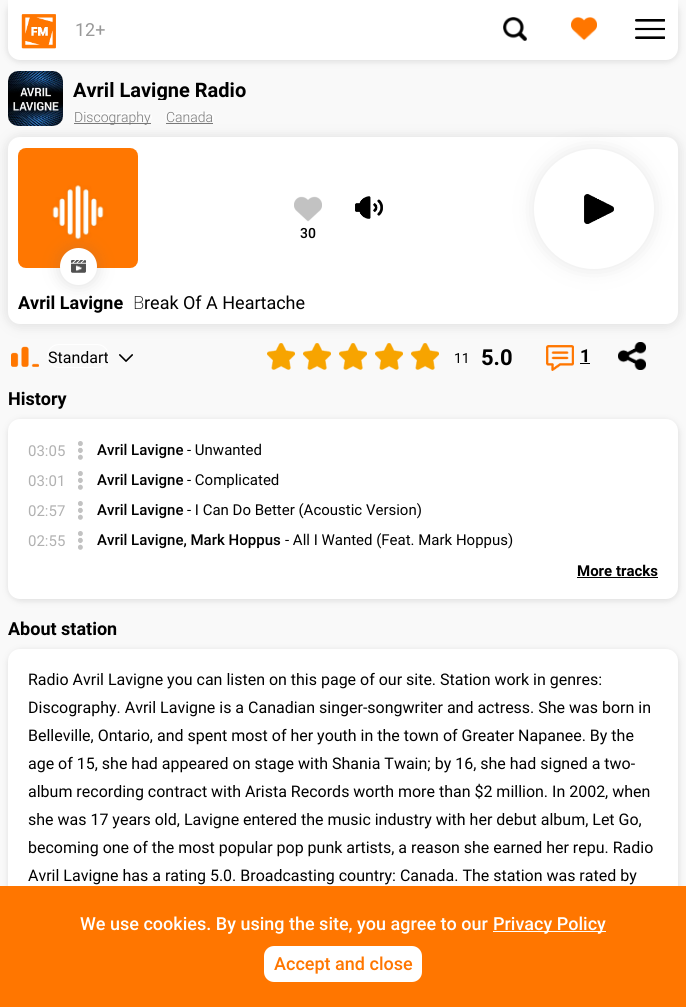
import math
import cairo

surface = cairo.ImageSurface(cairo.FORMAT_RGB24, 686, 1007)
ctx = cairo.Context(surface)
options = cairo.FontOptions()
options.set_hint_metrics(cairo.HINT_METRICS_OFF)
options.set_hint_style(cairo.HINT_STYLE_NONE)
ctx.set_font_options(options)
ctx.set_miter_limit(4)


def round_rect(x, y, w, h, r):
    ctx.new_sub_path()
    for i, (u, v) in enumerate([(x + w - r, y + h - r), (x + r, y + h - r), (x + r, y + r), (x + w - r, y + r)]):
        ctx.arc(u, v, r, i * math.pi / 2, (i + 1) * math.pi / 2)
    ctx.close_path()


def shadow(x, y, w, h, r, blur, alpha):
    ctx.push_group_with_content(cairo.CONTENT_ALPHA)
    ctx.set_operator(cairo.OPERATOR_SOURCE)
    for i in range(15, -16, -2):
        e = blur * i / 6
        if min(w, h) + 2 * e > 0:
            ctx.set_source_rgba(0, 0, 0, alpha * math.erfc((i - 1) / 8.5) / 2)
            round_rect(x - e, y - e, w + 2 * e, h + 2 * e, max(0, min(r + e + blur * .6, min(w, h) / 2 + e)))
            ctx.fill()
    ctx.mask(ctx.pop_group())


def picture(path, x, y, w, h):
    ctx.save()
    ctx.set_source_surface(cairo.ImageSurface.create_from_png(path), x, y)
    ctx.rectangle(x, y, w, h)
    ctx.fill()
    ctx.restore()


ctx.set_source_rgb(0.973, 0.976, 0.976)
ctx.paint()
ctx.set_source_rgb(0.431, 0.431, 0.431)
shadow(7, 137, 672, 189, 13, 6, 0.19)
picture("img5.png", 8, 71, 55, 55)
shadow(7, 0, 672, 62, 13, 3, 0.19)
ctx.set_source_rgb(1, 1, 1)
ctx.new_path()
ctx.move_to(8, 0)
ctx.line_to(678, 0)
ctx.line_to(678, 48)
ctx.curve_to(678, 54.5, 672.5, 60, 666, 60)
ctx.line_to(20, 60)
ctx.curve_to(13.5, 60, 8, 54.5, 8, 48)
ctx.close_path()
ctx.fill()
picture("img1.png", 21, 14, 35, 35)
picture("img2.png", 635, 19, 30, 20)
ctx.select_font_face("Roboto")
ctx.set_font_size(18)
ctx.set_source_rgb(0.6, 0.6, 0.6)
ctx.move_to(75, 36)
ctx.show_text("12+")
picture("img3.png", 503, 17, 24, 24)
picture("img4.png", 571, 17, 26, 24)
ctx.save()
ctx.rectangle(73, 81, 173, 19)
ctx.clip()
ctx.select_font_face("Roboto", cairo.FONT_SLANT_NORMAL, cairo.FONT_WEIGHT_BOLD)
ctx.set_font_size(20)
ctx.set_source_rgb(0, 0, 0)
ctx.move_to(73, 97)
ctx.show_text("Avril Lavigne Radio")
ctx.restore()
round_rect(73.5, 113.5, 78, 7, 3.5)
ctx.set_source_rgb(1, 1, 1)
ctx.set_line_width(1)
ctx.stroke()
ctx.set_source_rgb(0.475, 0.475, 0.475)
ctx.rectangle(74, 123, 77, 1)
ctx.fill()
ctx.select_font_face("Roboto Light")
ctx.set_font_size(14)
ctx.move_to(74, 122)
ctx.show_text("Discography")
round_rect(165.5, 113.5, 48, 7, 3.5)
ctx.set_source_rgb(1, 1, 1)
ctx.stroke()
ctx.set_source_rgb(0.475, 0.475, 0.475)
ctx.move_to(166, 122)
ctx.show_text("Canada")
ctx.rectangle(166, 123, 47, 1)
ctx.fill()
ctx.set_source_rgb(1, 1, 1)
round_rect(8, 137, 670, 187, 12)
ctx.fill()
picture("img6.png", 18, 148, 120, 120)
ctx.set_source_rgb(0.431, 0.431, 0.431)
shadow(60, 248, 37, 37, 18.5, 8.5, 0.23)
ctx.set_source_rgb(1, 1, 1)
ctx.arc(78.5, 266.5, 18.5, 0, 2 * math.pi)
ctx.fill()
picture("img7.png", 71, 260, 15, 13)
picture("img8.png", 294, 196, 28, 26)
ctx.select_font_face("Roboto Medium")
ctx.set_source_rgb(0, 0, 0)
ctx.move_to(300, 238)
ctx.show_text("30")
picture("img9.png", 546, 345, 28, 26)
ctx.select_font_face("Roboto", cairo.FONT_SLANT_NORMAL, cairo.FONT_WEIGHT_BOLD)
ctx.set_font_size(18)
ctx.move_to(580, 362)
ctx.show_text("1")
ctx.rectangle(580, 363, 10, 1)
ctx.fill()
picture("img10.png", 618, 342, 28, 28)
picture("img11.png", 267, 343, 28, 27)
picture("img11.png", 303, 343, 28, 27)
picture("img11.png", 339, 343, 28, 27)
picture("img11.png", 375, 343, 28, 27)
picture("img11.png", 411, 343, 28, 27)
ctx.select_font_face("Roboto")
ctx.set_font_size(14)
ctx.move_to(454, 363)
ctx.show_text("11")
ctx.select_font_face("Roboto", cairo.FONT_SLANT_NORMAL, cairo.FONT_WEIGHT_BOLD)
ctx.set_font_size(22)
ctx.move_to(481, 365)
ctx.show_text("5.0")
ctx.set_font_size(18)
ctx.move_to(8, 405)
ctx.show_text("History")
ctx.set_source_rgb(0.431, 0.431, 0.431)
shadow(8, 420, 671, 181, 13, 3, 0.19)
ctx.set_source_rgb(1, 1, 1)
round_rect(8, 419, 670, 180, 12)
ctx.fill()
ctx.select_font_face("Roboto")
ctx.set_font_size(15)
ctx.set_source_rgb(0.694, 0.694, 0.694)
ctx.move_to(28, 456)
ctx.show_text("03:05")
picture("img12.png", 78, 441, 5, 19)
ctx.select_font_face("Roboto Medium")
ctx.set_source_rgb(0, 0, 0)
ctx.move_to(97, 455)
ctx.show_text("Avril Lavigne")
ctx.select_font_face("Roboto")
ctx.move_to(187, 455)
ctx.show_text("- Unwanted")
ctx.set_source_rgb(0.694, 0.694, 0.694)
ctx.move_to(28, 486)
ctx.show_text("03:01")
picture("img12.png", 78, 471, 5, 19)
ctx.select_font_face("Roboto Medium")
ctx.set_source_rgb(0, 0, 0)
ctx.move_to(97, 485)
ctx.show_text("Avril Lavigne")
ctx.select_font_face("Roboto")
ctx.move_to(187, 485)
ctx.show_text("- Complicated")
ctx.set_source_rgb(0.694, 0.694, 0.694)
ctx.move_to(28, 516)
ctx.show_text("02:57")
picture("img12.png", 78, 501, 5, 19)
ctx.select_font_face("Roboto Medium")
ctx.set_source_rgb(0, 0, 0)
ctx.move_to(97, 515)
ctx.show_text("Avril Lavigne")
ctx.select_font_face("Roboto")
ctx.move_to(187, 515)
ctx.show_text("- I Can Do Better (Acoustic Version)")
ctx.set_source_rgb(0.694, 0.694, 0.694)
ctx.move_to(28, 546)
ctx.show_text("02:55")
picture("img12.png", 78, 531, 5, 19)
ctx.select_font_face("Roboto Medium")
ctx.set_source_rgb(0, 0, 0)
ctx.move_to(97, 545)
ctx.show_text("Avril Lavigne, Mark Hoppus")
ctx.select_font_face("Roboto")
ctx.move_to(285, 545)
ctx.show_text("- All I Wanted (Feat. Mark Hoppus)")
ctx.select_font_face("Roboto", cairo.FONT_SLANT_NORMAL, cairo.FONT_WEIGHT_BOLD)
ctx.move_to(577, 576)
ctx.show_text("More tracks")
ctx.rectangle(577, 577, 81, 1)
ctx.fill()
ctx.set_font_size(18)
ctx.move_to(8, 635)
ctx.show_text("About station")
ctx.set_source_rgb(0.431, 0.431, 0.431)
shadow(8, 650, 671, 287, 13, 3, 0.19)
ctx.set_source_rgb(1, 1, 1)
round_rect(8, 649, 670, 286, 12)
ctx.fill()
ctx.select_font_face("Roboto")
ctx.set_font_size(16)
ctx.set_source_rgb(0, 0, 0)
ctx.move_to(28, 685)
ctx.show_text("Radio Avril Lavigne you can listen on this page of our site. Station work in genres:")
ctx.move_to(28, 713)
ctx.show_text("Discography. Avril Lavigne is a Canadian singer-songwriter and actress. She was born in")
ctx.move_to(28, 741)
ctx.show_text("Belleville, Ontario, and spent most of her youth in the town of Greater Napanee. By the")
ctx.move_to(28, 769)
ctx.show_text("age of 15, she had appeared on stage with Shania Twain; by 16, she had signed a two-")
ctx.move_to(28, 797)
ctx.show_text("album recording contract with Arista Records worth more than $2 million. In 2002, when")
ctx.move_to(28, 825)
ctx.show_text("she was 17 years old, Lavigne entered the music industry with her debut album, Let Go,")
ctx.move_to(28, 853)
ctx.show_text("becoming one of the most popular pop punk artists, a reason she earned her repu. Radio")
ctx.move_to(28, 881)
ctx.show_text("Avril Lavigne has a rating 5.0. Broadcasting country: Canada. The station was rated by")
ctx.select_font_face("Roboto", cairo.FONT_SLANT_NORMAL, cairo.FONT_WEIGHT_BOLD)
ctx.set_font_size(18)
ctx.move_to(18, 309)
ctx.show_text("Avril Lavigne")
ctx.select_font_face("Noto Sans ExtraLight")
ctx.move_to(133, 309)
ctx.show_text("B")
ctx.select_font_face("Roboto")
ctx.move_to(144, 309)
ctx.show_text("reak Of A Heartache")
picture("img13.png", 355, 196, 28, 23)
ctx.set_source_rgb(0.431, 0.431, 0.431)
shadow(534, 149, 120, 120, 60, 10, 0.17)
ctx.set_source_rgb(1, 1, 1)
ctx.arc(594, 209, 60, 0, 2 * math.pi)
ctx.fill()
picture("img14.png", 584, 194, 30, 30)
picture("img15.png", 11, 346, 28, 21)
round_rect(47.5, 344.5, 61, 23, 11.5)
ctx.stroke()
ctx.set_font_size(16)
ctx.set_source_rgb(0, 0, 0)
ctx.move_to(48, 363)
ctx.show_text("Standart")
picture("img16.png", 119, 354, 14, 8)
ctx.set_source_rgb(1, 0.463, 0)
ctx.rectangle(0, 886, 686, 121)
ctx.fill()
ctx.select_font_face("Roboto Medium")
ctx.set_font_size(18)
ctx.set_source_rgb(1, 1, 1)
ctx.move_to(80, 930)
ctx.show_text("We use cookies. By using the site, you agree to our")
ctx.rectangle(493, 931, 113, 1)
ctx.fill()
ctx.move_to(493, 930)
ctx.show_text("Privacy Policy")
round_rect(264, 946, 158, 36, 10)
ctx.fill()
ctx.set_source_rgb(1, 0.463, 0)
ctx.move_to(274, 970)
ctx.show_text("Accept and close")
surface.write_to_png("page.png")
